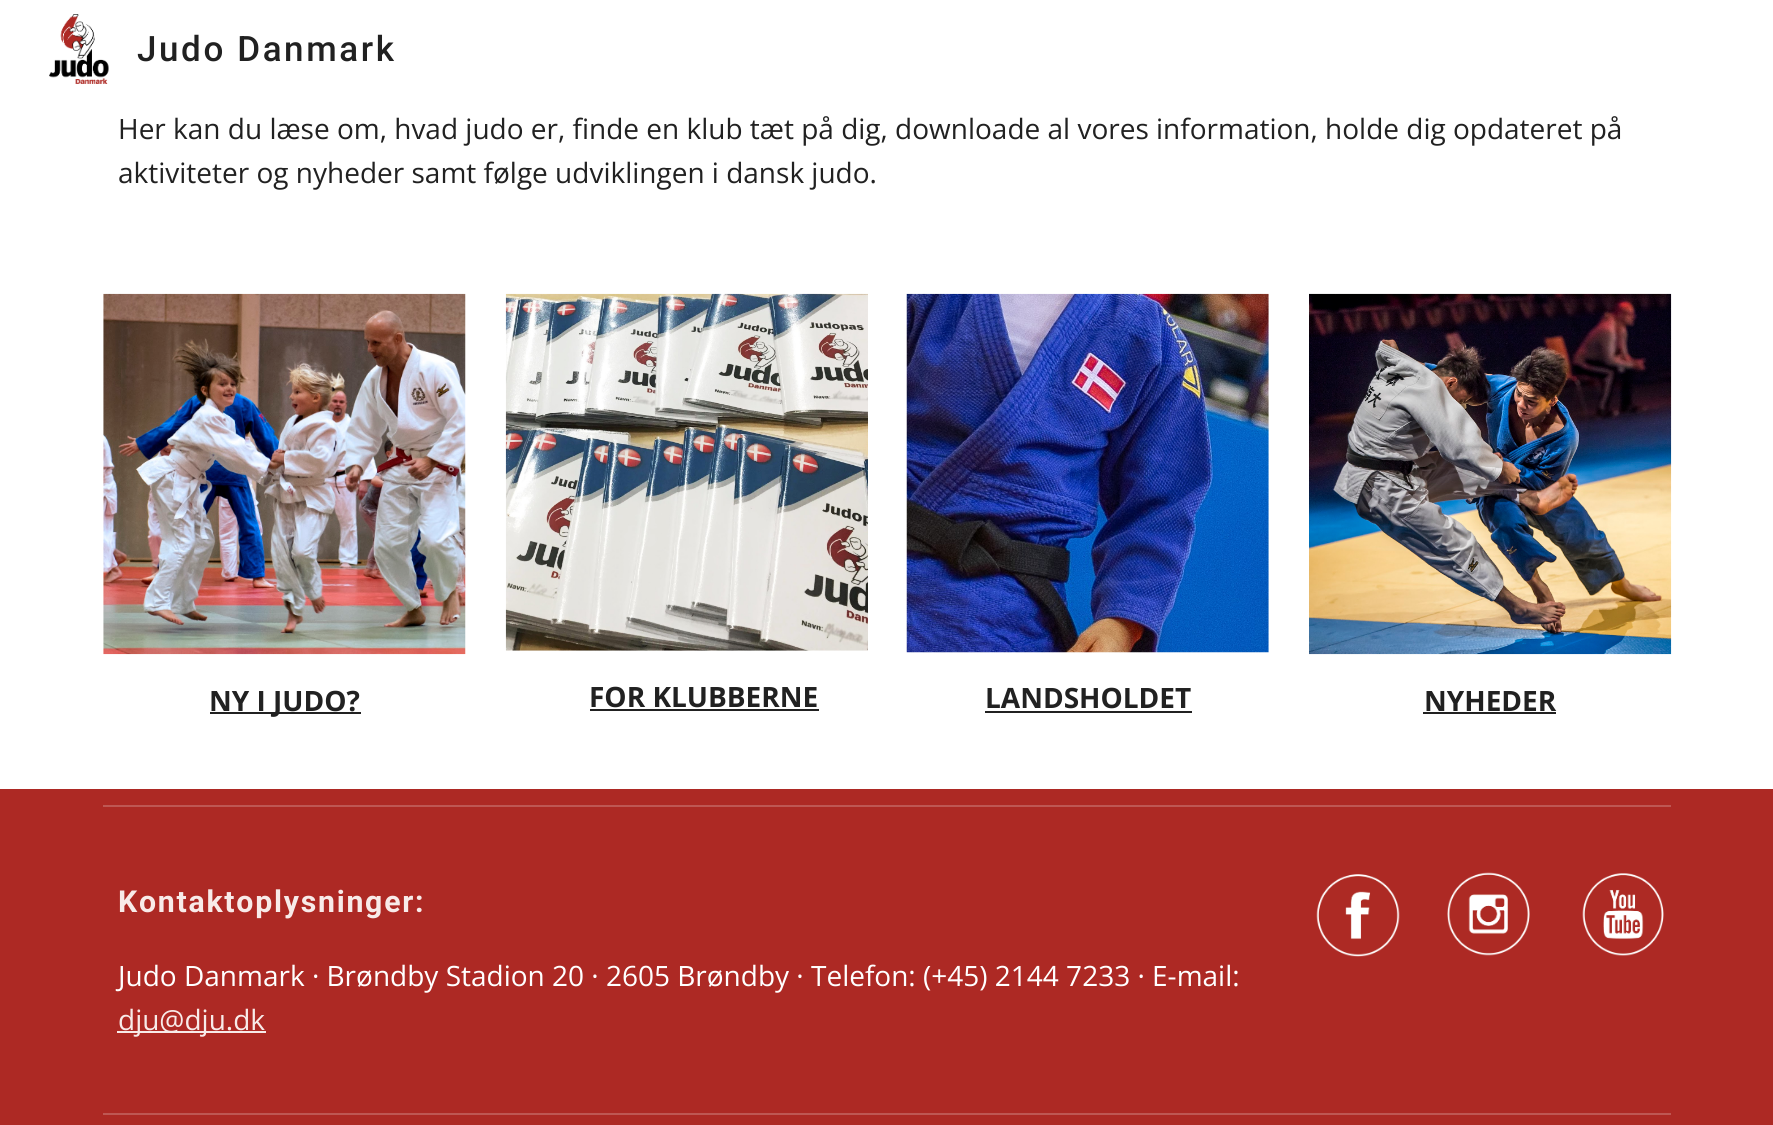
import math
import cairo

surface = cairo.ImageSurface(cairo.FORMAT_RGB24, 1773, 1125)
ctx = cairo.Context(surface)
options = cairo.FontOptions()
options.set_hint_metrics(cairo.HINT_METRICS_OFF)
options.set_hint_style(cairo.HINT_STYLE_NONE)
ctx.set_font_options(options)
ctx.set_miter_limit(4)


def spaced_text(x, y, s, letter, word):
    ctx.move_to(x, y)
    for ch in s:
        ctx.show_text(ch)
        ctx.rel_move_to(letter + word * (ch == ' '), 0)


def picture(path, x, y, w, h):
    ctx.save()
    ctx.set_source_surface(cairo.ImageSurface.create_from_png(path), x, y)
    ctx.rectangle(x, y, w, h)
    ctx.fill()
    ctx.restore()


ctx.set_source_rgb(1, 1, 1)
ctx.paint()
picture("img1.png", 49, 14, 60, 70)
ctx.select_font_face("Roboto Medium")
ctx.set_font_size(35)
ctx.set_source_rgb(0.129, 0.129, 0.129)
spaced_text(137, 61, "Judo Danmark", 2.6, 0)
ctx.select_font_face("Open Sans")
ctx.set_font_size(28)
ctx.move_to(118, 139)
ctx.show_text("Her kan du læse om, hvad judo er, finde en klub tæt på dig, downloade al vores information, holde dig opdateret på")
ctx.move_to(118, 183)
ctx.show_text("aktiviteter og nyheder samt følge udviklingen i dansk judo.")
picture("img2.png", 103, 293, 363, 362)
ctx.rectangle(210, 712, 151, 2)
ctx.fill()
ctx.select_font_face("Open Sans", cairo.FONT_SLANT_NORMAL, cairo.FONT_WEIGHT_BOLD)
ctx.move_to(209, 711)
ctx.show_text("NY I JUDO?")
picture("img3.png", 505, 293, 363, 358)
ctx.move_to(589, 707)
ctx.show_text("FOR KLUBBERNE")
ctx.rectangle(590, 709, 229, 2)
ctx.fill()
picture("img4.png", 906, 293, 363, 360)
ctx.move_to(985, 708)
ctx.show_text("LANDSHOLDET")
ctx.rectangle(985, 711, 207, 2)
ctx.fill()
picture("img5.png", 1309, 293, 363, 362)
ctx.move_to(1424, 711)
ctx.show_text("NYHEDER")
ctx.rectangle(1423, 712, 133, 2)
ctx.fill()
ctx.set_source_rgb(0.678, 0.161, 0.141)
ctx.rectangle(0, 789, 1773, 336)
ctx.fill()
ctx.set_source_rgb(0.745, 0.341, 0.325)
ctx.rectangle(103, 805, 1568, 2)
ctx.fill()
ctx.select_font_face("Roboto", cairo.FONT_SLANT_NORMAL, cairo.FONT_WEIGHT_BOLD)
ctx.set_font_size(30.25)
ctx.set_source_rgb(0.969, 0.918, 0.914)
spaced_text(118, 912, "Kontaktoplysninger:", 1.75, 0)
ctx.select_font_face("Open Sans")
ctx.set_font_size(28)
ctx.set_source_rgb(1, 1, 1)
ctx.move_to(118, 986)
ctx.show_text("Judo Danmark · Brøndby Stadion 20 · 2605 Brøndby · Telefon: (+45) 2144 7233 · E-mail:")
ctx.set_source_rgb(0.969, 0.918, 0.914)
ctx.rectangle(117, 1031, 149, 2)
ctx.fill()
ctx.move_to(118, 1030)
ctx.show_text("dju@dju.dk")
picture("img6.png", 1316, 874, 84, 83)
picture("img7.png", 1447, 872, 83, 84)
picture("img8.png", 1582, 873, 82, 83)
ctx.set_source_rgb(0.745, 0.341, 0.325)
ctx.rectangle(103, 1113, 1568, 2)
ctx.fill()
surface.write_to_png("page.png")
